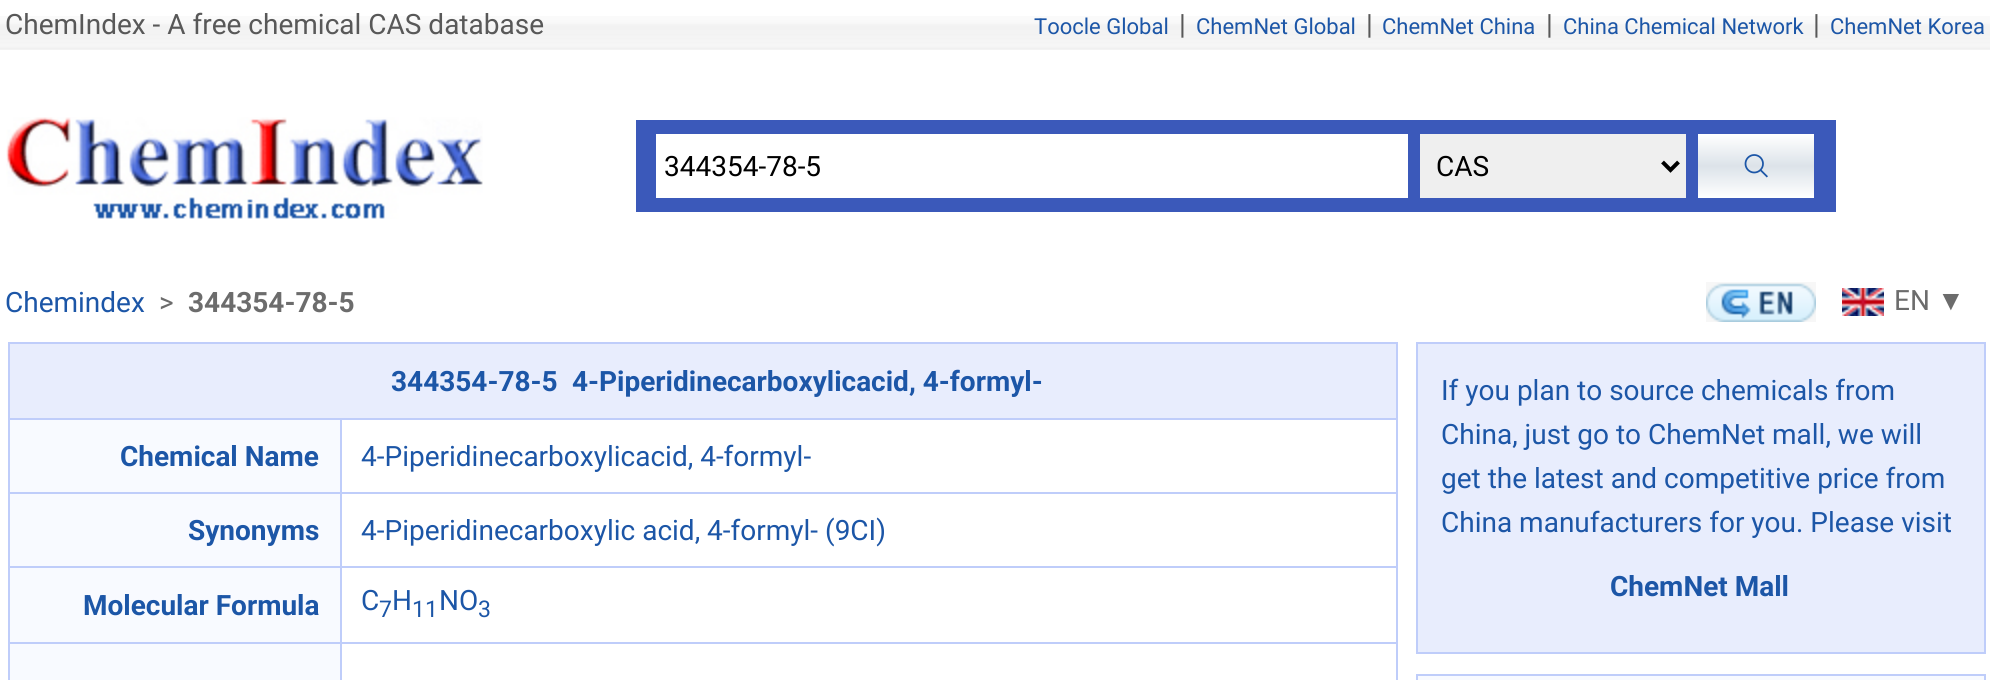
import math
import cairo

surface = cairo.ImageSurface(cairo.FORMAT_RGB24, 1990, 680)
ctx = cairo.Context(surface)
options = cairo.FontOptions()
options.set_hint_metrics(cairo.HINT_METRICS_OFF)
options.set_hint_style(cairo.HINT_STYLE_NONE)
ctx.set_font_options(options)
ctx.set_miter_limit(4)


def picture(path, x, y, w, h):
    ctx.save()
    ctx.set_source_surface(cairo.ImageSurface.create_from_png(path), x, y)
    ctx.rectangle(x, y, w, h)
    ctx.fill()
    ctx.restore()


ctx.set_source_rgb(1, 1, 1)
ctx.paint()
picture("img1.png", 0, 16, 1990, 34)
ctx.select_font_face("Roboto")
ctx.set_font_size(28)
ctx.set_source_rgb(0.345, 0.345, 0.345)
ctx.move_to(5, 34)
ctx.show_text("ChemIndex - A free chemical CAS database")
ctx.set_font_size(22)
ctx.set_source_rgb(0.11, 0.337, 0.655)
ctx.move_to(1034, 34)
ctx.show_text("Toocle Global")
ctx.set_font_size(28)
ctx.set_source_rgb(0.345, 0.345, 0.345)
ctx.move_to(1179, 34)
ctx.show_text("|")
ctx.set_font_size(22)
ctx.set_source_rgb(0.11, 0.337, 0.655)
ctx.move_to(1196, 34)
ctx.show_text("ChemNet Global")
ctx.set_font_size(28)
ctx.set_source_rgb(0.345, 0.345, 0.345)
ctx.move_to(1366, 34)
ctx.show_text("|")
ctx.set_font_size(22)
ctx.set_source_rgb(0.11, 0.337, 0.655)
ctx.move_to(1382, 34)
ctx.show_text("ChemNet China")
ctx.set_font_size(28)
ctx.set_source_rgb(0.345, 0.345, 0.345)
ctx.move_to(1546, 34)
ctx.show_text("|")
ctx.set_font_size(22)
ctx.set_source_rgb(0.11, 0.337, 0.655)
ctx.move_to(1563, 34)
ctx.show_text("China Chemical Network")
ctx.set_font_size(28)
ctx.set_source_rgb(0.345, 0.345, 0.345)
ctx.move_to(1813, 34)
ctx.show_text("|")
ctx.set_font_size(22)
ctx.set_source_rgb(0.11, 0.337, 0.655)
ctx.move_to(1830, 34)
ctx.show_text("ChemNet Korea")
picture("img2.png", 6, 117, 477, 102)
ctx.set_source_rgb(0.231, 0.349, 0.729)
ctx.rectangle(636, 120, 1200, 92)
ctx.fill()
ctx.set_source_rgb(1, 1, 1)
ctx.rectangle(656, 134, 752, 64)
ctx.fill()
ctx.set_font_size(28)
ctx.set_source_rgb(0, 0, 0)
ctx.move_to(664, 176)
ctx.show_text("344354-78-5")
ctx.set_source_rgb(0.937, 0.937, 0.937)
ctx.rectangle(1420, 134, 266, 64)
ctx.fill()
ctx.new_path()
ctx.move_to(1662.5, 162)
ctx.line_to(1670.5, 170)
ctx.line_to(1678.5, 162)
ctx.set_source_rgb(0, 0, 0)
ctx.set_line_width(4)
ctx.stroke()
ctx.move_to(1436, 176)
ctx.show_text("CAS")
gradient = cairo.LinearGradient(1756, 134, 1756, 198)
gradient.add_color_stop_rgba(0, 1, 1, 1, 1)
gradient.add_color_stop_rgba(0.5, 0.863, 0.89, 0.914, 1)
gradient.add_color_stop_rgba(1, 1, 1, 1, 1)
ctx.set_source(gradient)
ctx.rectangle(1698, 134, 116, 64)
ctx.fill()
picture("img3.png", 1744, 154, 24, 24)
ctx.set_source_rgb(0.11, 0.337, 0.655)
ctx.move_to(5, 312)
ctx.show_text("Chemindex")
ctx.set_source_rgb(0.424, 0.424, 0.424)
ctx.move_to(159, 312)
ctx.show_text(">")
ctx.select_font_face("Roboto", cairo.FONT_SLANT_NORMAL, cairo.FONT_WEIGHT_BOLD)
ctx.move_to(188, 312)
ctx.show_text("344354-78-5")
picture("img4.png", 1706, 282, 110, 40)
picture("img5.png", 1842, 288, 42, 28)
ctx.select_font_face("Roboto")
ctx.move_to(1894, 310)
ctx.show_text("EN")
ctx.select_font_face("Liberation Sans")
ctx.move_to(1937, 310)
ctx.show_text("▼")
ctx.set_source_rgb(0.749, 0.804, 0.98)
ctx.rectangle(8, 342, 1390, 338)
ctx.fill()
ctx.set_source_rgb(0.91, 0.929, 0.992)
ctx.rectangle(10, 344, 1386, 74)
ctx.fill()
ctx.select_font_face("Roboto", cairo.FONT_SLANT_NORMAL, cairo.FONT_WEIGHT_BOLD)
ctx.set_source_rgb(0.11, 0.337, 0.655)
ctx.move_to(391, 391)
ctx.show_text("344354-78-5 4-Piperidinecarboxylicacid, 4-formyl-")
ctx.set_source_rgb(0.969, 0.98, 1)
ctx.rectangle(10, 420, 330, 72)
ctx.fill()
ctx.set_source_rgb(0.11, 0.337, 0.655)
ctx.move_to(120, 466)
ctx.show_text("Chemical Name")
ctx.set_source_rgb(1, 1, 1)
ctx.rectangle(342, 420, 1054, 72)
ctx.fill()
ctx.select_font_face("Roboto")
ctx.set_source_rgb(0.11, 0.337, 0.655)
ctx.move_to(361, 466)
ctx.show_text("4-Piperidinecarboxylicacid, 4-formyl-")
ctx.set_source_rgb(0.969, 0.98, 1)
ctx.rectangle(10, 494, 330, 72)
ctx.fill()
ctx.select_font_face("Roboto", cairo.FONT_SLANT_NORMAL, cairo.FONT_WEIGHT_BOLD)
ctx.set_source_rgb(0.11, 0.337, 0.655)
ctx.move_to(188, 540)
ctx.show_text("Synonyms")
ctx.set_source_rgb(1, 1, 1)
ctx.rectangle(342, 494, 1054, 72)
ctx.fill()
ctx.select_font_face("Roboto")
ctx.set_source_rgb(0.11, 0.337, 0.655)
ctx.move_to(361, 540)
ctx.show_text("4-Piperidinecarboxylic acid, 4-formyl- (9CI)")
ctx.set_source_rgb(0.969, 0.98, 1)
ctx.rectangle(10, 568, 330, 74)
ctx.fill()
ctx.select_font_face("Roboto", cairo.FONT_SLANT_NORMAL, cairo.FONT_WEIGHT_BOLD)
ctx.set_source_rgb(0.11, 0.337, 0.655)
ctx.move_to(83, 615)
ctx.show_text("Molecular Formula")
ctx.set_source_rgb(1, 1, 1)
ctx.rectangle(342, 568, 1054, 74)
ctx.fill()
ctx.select_font_face("Roboto")
ctx.set_source_rgb(0.11, 0.337, 0.655)
ctx.move_to(361, 610)
ctx.show_text("C")
ctx.set_font_size(23)
ctx.move_to(379, 617)
ctx.show_text("7")
ctx.set_font_size(28)
ctx.move_to(392, 610)
ctx.show_text("H")
ctx.set_font_size(23)
ctx.move_to(412, 617)
ctx.show_text("11")
ctx.set_font_size(28)
ctx.move_to(439, 610)
ctx.show_text("NO")
ctx.set_font_size(23)
ctx.move_to(478, 617)
ctx.show_text("3")
ctx.set_source_rgb(0.969, 0.98, 1)
ctx.rectangle(10, 644, 330, 36)
ctx.fill()
ctx.set_source_rgb(1, 1, 1)
ctx.rectangle(342, 644, 1054, 36)
ctx.fill()
ctx.set_source_rgb(0.91, 0.929, 0.992)
ctx.rectangle(1417, 343, 568, 310)
ctx.fill_preserve()
ctx.set_source_rgb(0.749, 0.804, 0.98)
ctx.set_line_width(2)
ctx.stroke()
ctx.set_font_size(28)
ctx.set_source_rgb(0.11, 0.337, 0.655)
ctx.move_to(1441, 400)
ctx.show_text("If you plan to source chemicals from")
ctx.move_to(1441, 444)
ctx.show_text("China, just go to ChemNet mall, we will")
ctx.move_to(1441, 488)
ctx.show_text("get the latest and competitive price from")
ctx.move_to(1441, 532)
ctx.show_text("China manufacturers for you. Please visit")
ctx.select_font_face("Roboto", cairo.FONT_SLANT_NORMAL, cairo.FONT_WEIGHT_BOLD)
ctx.move_to(1610, 596)
ctx.show_text("ChemNet Mall")
ctx.set_source_rgb(0.969, 0.98, 1)
ctx.rectangle(1417, 675, 568, 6)
ctx.fill_preserve()
ctx.set_source_rgb(0.749, 0.804, 0.98)
ctx.stroke()
surface.write_to_png("page.png")
